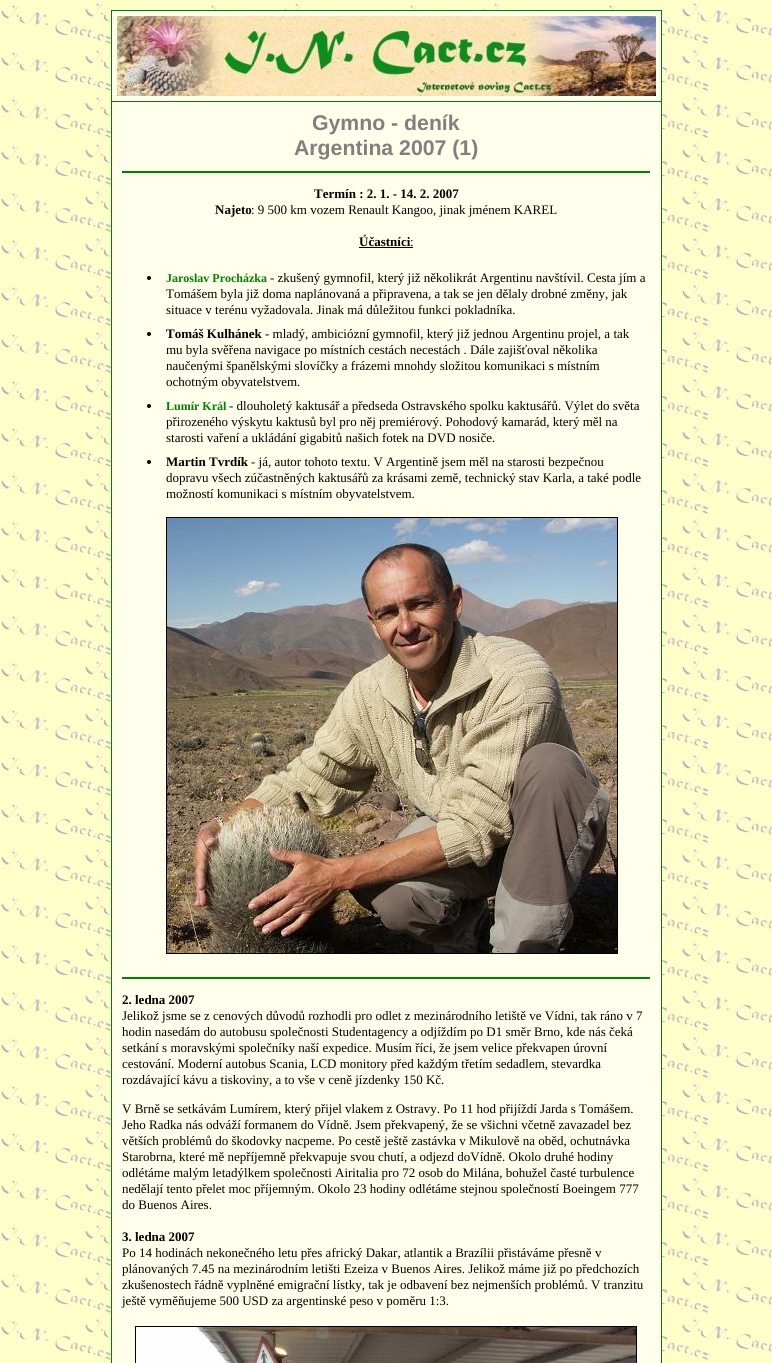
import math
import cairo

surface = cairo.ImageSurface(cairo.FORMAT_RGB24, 772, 1363)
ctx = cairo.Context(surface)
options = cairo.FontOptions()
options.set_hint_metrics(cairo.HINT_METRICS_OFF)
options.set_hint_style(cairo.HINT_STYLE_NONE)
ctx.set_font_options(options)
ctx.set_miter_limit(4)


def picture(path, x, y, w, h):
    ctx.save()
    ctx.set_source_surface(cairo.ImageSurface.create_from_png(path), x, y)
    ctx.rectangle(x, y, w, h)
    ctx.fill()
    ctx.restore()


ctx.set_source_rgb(1, 1, 1)
ctx.paint()
picture("img1.png", 0, 0, 772, 1363)
ctx.set_source_rgb(0, 0.502, 0)
ctx.rectangle(111, 10, 551, 1353)
ctx.fill()
ctx.set_source_rgb(1, 1, 0.918)
ctx.rectangle(112, 11, 549, 90)
ctx.fill()
picture("img2.png", 117, 16, 539, 80)
ctx.rectangle(112, 102, 549, 1261)
ctx.fill()
ctx.select_font_face("Liberation Sans", cairo.FONT_SLANT_NORMAL, cairo.FONT_WEIGHT_BOLD)
ctx.set_font_size(21.25)
ctx.set_source_rgb(0.502, 0.502, 0.502)
ctx.move_to(312, 130)
ctx.show_text("Gymno - deník")
ctx.move_to(294, 155)
ctx.show_text("Argentina 2007 (1)")
ctx.set_source_rgb(0, 0.502, 0)
ctx.rectangle(122, 171, 528, 2)
ctx.fill()
ctx.select_font_face("Liberation Serif", cairo.FONT_SLANT_NORMAL, cairo.FONT_WEIGHT_BOLD)
ctx.set_font_size(13)
ctx.set_source_rgb(0, 0, 0)
ctx.move_to(314, 198)
ctx.show_text("Termín : 2. 1. - 14. 2. 2007")
ctx.move_to(215, 214)
ctx.show_text("Najeto")
ctx.select_font_face("Liberation Serif")
ctx.move_to(251, 214)
ctx.show_text(": 9 500 km vozem Renault Kangoo, jinak jménem KAREL")
ctx.select_font_face("Liberation Serif", cairo.FONT_SLANT_NORMAL, cairo.FONT_WEIGHT_BOLD)
ctx.move_to(359, 246)
ctx.show_text("Účastníci")
ctx.select_font_face("Liberation Serif")
ctx.move_to(410, 246)
ctx.show_text(":")
ctx.rectangle(359, 247, 54, 1)
ctx.fill()
ctx.arc(149, 278, 2, 0, 2 * math.pi)
ctx.fill()
ctx.select_font_face("Liberation Serif", cairo.FONT_SLANT_NORMAL, cairo.FONT_WEIGHT_BOLD)
ctx.set_font_size(12)
ctx.set_source_rgb(0, 0.502, 0)
ctx.move_to(166, 282)
ctx.show_text("Jaroslav Procházka")
ctx.select_font_face("Liberation Serif")
ctx.set_font_size(13)
ctx.set_source_rgb(0, 0, 0)
ctx.move_to(270, 282)
ctx.show_text("- zkušený gymnofil, který již několikrát Argentinu navštívil. Cesta jím a")
ctx.move_to(166, 298)
ctx.show_text("Tomášem byla již doma naplánovaná a připravena, a tak se jen dělaly drobné změny, jak")
ctx.move_to(166, 314)
ctx.show_text("situace v terénu vyžadovala. Jinak má důležitou funkci pokladníka.")
ctx.new_path()
ctx.arc(149, 334, 2, 0, 2 * math.pi)
ctx.fill()
ctx.select_font_face("Liberation Serif", cairo.FONT_SLANT_NORMAL, cairo.FONT_WEIGHT_BOLD)
ctx.move_to(166, 338)
ctx.show_text("Tomáš Kulhánek")
ctx.select_font_face("Liberation Serif")
ctx.move_to(265, 338)
ctx.show_text("- mladý, ambiciózní gymnofil, který již jednou Argentinu projel, a tak")
ctx.move_to(166, 354)
ctx.show_text("mu byla svěřena navigace po místních cestách necestách . Dále zajišťoval několika")
ctx.move_to(166, 370)
ctx.show_text("naučenými španělskými slovíčky a frázemi mnohdy složitou komunikaci s místním")
ctx.move_to(166, 386)
ctx.show_text("ochotným obyvatelstvem.")
ctx.new_path()
ctx.arc(149, 406, 2, 0, 2 * math.pi)
ctx.fill()
ctx.select_font_face("Liberation Serif", cairo.FONT_SLANT_NORMAL, cairo.FONT_WEIGHT_BOLD)
ctx.set_font_size(12)
ctx.set_source_rgb(0, 0.502, 0)
ctx.move_to(166, 410)
ctx.show_text("Lumír Král")
ctx.select_font_face("Liberation Serif")
ctx.set_font_size(13)
ctx.set_source_rgb(0, 0, 0)
ctx.move_to(229, 410)
ctx.show_text("- dlouholetý kaktusář a předseda Ostravského spolku kaktusářů. Výlet do světa")
ctx.move_to(166, 426)
ctx.show_text("přirozeného výskytu kaktusů byl pro něj premiérový. Pohodový kamarád, který měl na")
ctx.move_to(166, 442)
ctx.show_text("starosti vaření a ukládání gigabitů našich fotek na DVD nosiče.")
ctx.new_path()
ctx.arc(149, 462, 2, 0, 2 * math.pi)
ctx.fill()
ctx.select_font_face("Liberation Serif", cairo.FONT_SLANT_NORMAL, cairo.FONT_WEIGHT_BOLD)
ctx.move_to(166, 466)
ctx.show_text("Martin Tvrdík")
ctx.select_font_face("Liberation Serif")
ctx.move_to(251, 466)
ctx.show_text("- já, autor tohoto textu. V Argentině jsem měl na starosti bezpečnou")
ctx.move_to(166, 482)
ctx.show_text("dopravu všech zúčastněných kaktusářů za krásami země, technický stav Karla, a také podle")
ctx.move_to(166, 498)
ctx.show_text("možností komunikaci s místním obyvatelstvem.")
ctx.rectangle(166.5, 517.5, 451, 436)
ctx.set_line_width(1)
ctx.stroke()
picture("img3.png", 167, 518, 450, 435)
ctx.set_source_rgb(0, 0.502, 0)
ctx.rectangle(122, 977, 528, 2)
ctx.fill()
ctx.select_font_face("Liberation Serif", cairo.FONT_SLANT_NORMAL, cairo.FONT_WEIGHT_BOLD)
ctx.set_source_rgb(0, 0, 0)
ctx.move_to(122, 1004)
ctx.show_text("2. ledna 2007")
ctx.select_font_face("Liberation Serif")
ctx.move_to(122, 1020)
ctx.show_text("Jelikož jsme se z cenových důvodů rozhodli pro odlet z mezinárodního letiště ve Vídni, tak ráno v 7")
ctx.move_to(122, 1036)
ctx.show_text("hodin nasedám do autobusu společnosti Studentagency a odjíždím po D1 směr Brno, kde nás čeká")
ctx.move_to(122, 1052)
ctx.show_text("setkání s moravskými společníky naší expedice. Musím říci, že jsem velice překvapen úrovní")
ctx.move_to(122, 1068)
ctx.show_text("cestování. Moderní autobus Scania, LCD monitory před každým třetím sedadlem, stevardka")
ctx.move_to(122, 1084)
ctx.show_text("rozdávající kávu a tiskoviny, a to vše v ceně jízdenky 150 Kč.")
ctx.move_to(122, 1113)
ctx.show_text("V Brně se setkávám Lumírem, který přijel vlakem z Ostravy. Po 11 hod přijíždí Jarda s Tomášem.")
ctx.move_to(122, 1129)
ctx.show_text("Jeho Radka nás odváží formanem do Vídně. Jsem překvapený, že se všichni včetně zavazadel bez")
ctx.move_to(122, 1145)
ctx.show_text("větších problémů do škodovky nacpeme. Po cestě ještě zastávka v Mikulově na oběd, ochutnávka")
ctx.move_to(122, 1161)
ctx.show_text("Starobrna, které mě nepříjemně překvapuje svou chutí, a odjezd doVídně. Okolo druhé hodiny")
ctx.move_to(122, 1177)
ctx.show_text("odlétáme malým letadýlkem společnosti Airitalia pro 72 osob do Milána, bohužel časté turbulence")
ctx.move_to(122, 1193)
ctx.show_text("nedělají tento přelet moc příjemným. Okolo 23 hodiny odlétáme stejnou společností Boeingem 777")
ctx.move_to(122, 1209)
ctx.show_text("do Buenos Aires.")
ctx.select_font_face("Liberation Serif", cairo.FONT_SLANT_NORMAL, cairo.FONT_WEIGHT_BOLD)
ctx.move_to(122, 1241)
ctx.show_text("3. ledna 2007")
ctx.select_font_face("Liberation Serif")
ctx.move_to(122, 1257)
ctx.show_text("Po 14 hodinách nekonečného letu přes africký Dakar, atlantik a Brazílii přistáváme přesně v")
ctx.move_to(122, 1273)
ctx.show_text("plánovaných 7.45 na mezinárodním letišti Ezeiza v Buenos Aires. Jelikož máme již po předchozích")
ctx.move_to(122, 1289)
ctx.show_text("zkušenostech řádně vyplněné emigrační lístky, tak je odbavení bez nejmenších problémů. V tranzitu")
ctx.move_to(122, 1305)
ctx.show_text("ještě vyměňujeme 500 USD za argentinské peso v poměru 1:3.")
ctx.rectangle(135.5, 1326.5, 501, 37)
ctx.stroke()
picture("img4.png", 136, 1327, 500, 36)
surface.write_to_png("page.png")
